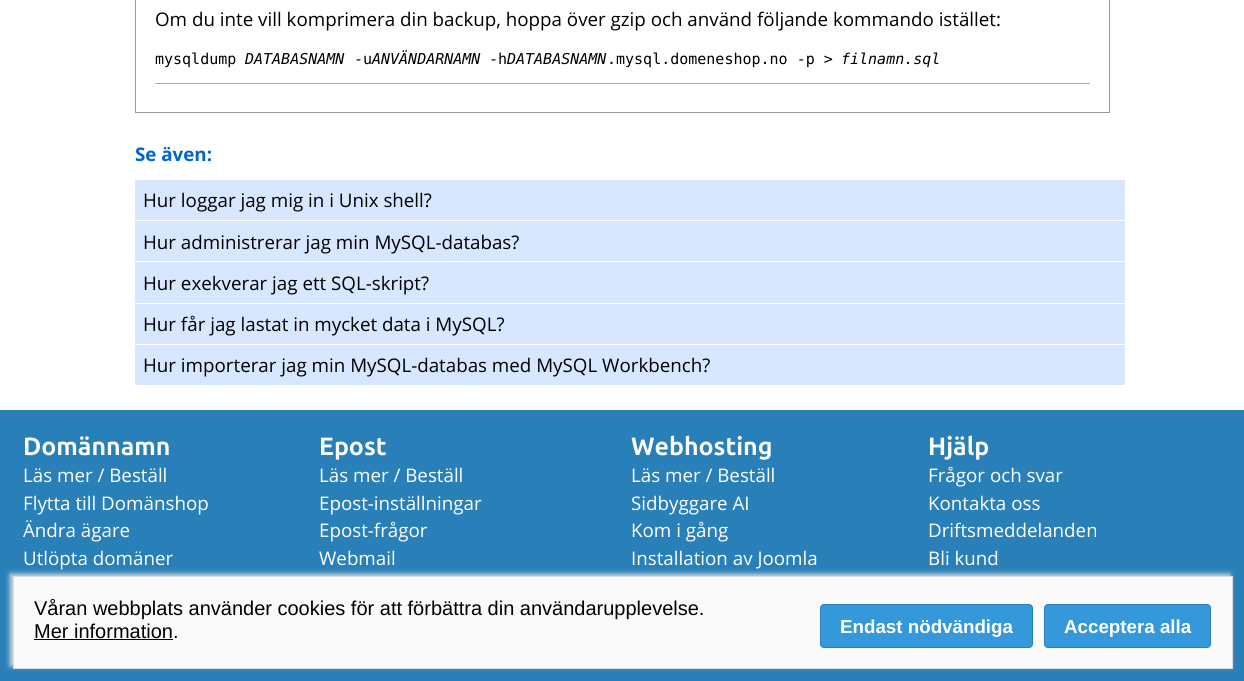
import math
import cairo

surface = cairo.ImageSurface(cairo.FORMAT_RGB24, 1244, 681)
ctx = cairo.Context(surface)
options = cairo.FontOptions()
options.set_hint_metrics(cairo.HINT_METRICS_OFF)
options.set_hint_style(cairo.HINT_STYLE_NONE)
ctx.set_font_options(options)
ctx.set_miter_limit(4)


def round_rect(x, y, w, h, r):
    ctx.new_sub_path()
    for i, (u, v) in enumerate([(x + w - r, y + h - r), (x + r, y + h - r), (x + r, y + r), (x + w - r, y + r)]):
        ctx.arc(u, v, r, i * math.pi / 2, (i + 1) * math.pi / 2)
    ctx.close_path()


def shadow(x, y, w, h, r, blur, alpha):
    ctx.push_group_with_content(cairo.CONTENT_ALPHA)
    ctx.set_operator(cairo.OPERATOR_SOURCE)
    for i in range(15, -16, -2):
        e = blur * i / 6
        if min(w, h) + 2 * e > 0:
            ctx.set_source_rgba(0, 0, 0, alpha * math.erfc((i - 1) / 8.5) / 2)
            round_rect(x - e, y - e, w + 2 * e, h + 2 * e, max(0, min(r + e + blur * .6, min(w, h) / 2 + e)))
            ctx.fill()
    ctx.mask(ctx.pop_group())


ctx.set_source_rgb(1, 1, 1)
ctx.paint()
ctx.rectangle(135.5, -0.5, 974, 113)
ctx.set_source_rgb(0.6, 0.6, 0.6)
ctx.set_line_width(1)
ctx.stroke()
ctx.select_font_face("Open Sans")
ctx.set_font_size(18.75)
ctx.set_source_rgb(0, 0, 0)
ctx.move_to(155, 26)
ctx.show_text("Om du inte vill komprimera din backup, hoppa över gzip och använd följande kommando istället:")
ctx.select_font_face("DejaVu Sans Mono")
ctx.set_font_size(15)
ctx.move_to(155, 64)
ctx.show_text("mysqldump")
ctx.select_font_face("DejaVu Sans Mono", cairo.FONT_SLANT_ITALIC)
ctx.move_to(245, 64)
ctx.show_text("DATABASNAMN")
ctx.select_font_face("DejaVu Sans Mono")
ctx.move_to(354, 64)
ctx.show_text("-u")
ctx.select_font_face("DejaVu Sans Mono", cairo.FONT_SLANT_ITALIC)
ctx.move_to(372, 64)
ctx.show_text("ANVÄNDARNAMN")
ctx.select_font_face("DejaVu Sans Mono")
ctx.move_to(489, 64)
ctx.show_text("-h")
ctx.select_font_face("DejaVu Sans Mono", cairo.FONT_SLANT_ITALIC)
ctx.move_to(507, 64)
ctx.show_text("DATABASNAMN")
ctx.select_font_face("DejaVu Sans Mono")
ctx.move_to(607, 64)
ctx.show_text(".mysql.domeneshop.no -p >")
ctx.select_font_face("DejaVu Sans Mono", cairo.FONT_SLANT_ITALIC)
ctx.move_to(841, 64)
ctx.show_text("filnamn.sql")
ctx.set_source_rgb(0.667, 0.667, 0.667)
ctx.rectangle(155, 83, 935, 1)
ctx.fill()
ctx.select_font_face("Open Sans", cairo.FONT_SLANT_NORMAL, cairo.FONT_WEIGHT_BOLD)
ctx.set_font_size(18.75)
ctx.set_source_rgb(0, 0.4, 0.8)
ctx.move_to(135, 161)
ctx.show_text("Se även:")
ctx.set_source_rgb(0.843, 0.906, 1)
ctx.rectangle(135, 180, 990, 40)
ctx.fill()
ctx.select_font_face("Open Sans")
ctx.set_source_rgb(0, 0, 0)
ctx.move_to(143, 207)
ctx.show_text("Hur loggar jag mig in i Unix shell?")
ctx.set_source_rgb(0.843, 0.906, 1)
ctx.rectangle(135, 221, 990, 40)
ctx.fill()
ctx.set_source_rgb(0, 0, 0)
ctx.move_to(143, 249)
ctx.show_text("Hur administrerar jag min MySQL-databas?")
ctx.set_source_rgb(0.843, 0.906, 1)
ctx.rectangle(135, 262, 990, 41)
ctx.fill()
ctx.set_source_rgb(0, 0, 0)
ctx.move_to(143, 290)
ctx.show_text("Hur exekverar jag ett SQL-skript?")
ctx.set_source_rgb(0.843, 0.906, 1)
ctx.rectangle(135, 304, 990, 40)
ctx.fill()
ctx.set_source_rgb(0, 0, 0)
ctx.move_to(143, 331)
ctx.show_text("Hur får jag lastat in mycket data i MySQL?")
ctx.set_source_rgb(0.843, 0.906, 1)
ctx.rectangle(135, 345, 990, 40)
ctx.fill()
ctx.set_source_rgb(0, 0, 0)
ctx.move_to(143, 372)
ctx.show_text("Hur importerar jag min MySQL-databas med MySQL Workbench?")
ctx.set_source_rgb(0.161, 0.502, 0.725)
ctx.rectangle(0, 410, 1244, 271)
ctx.fill()
ctx.select_font_face("Ubuntu", cairo.FONT_SLANT_NORMAL, cairo.FONT_WEIGHT_BOLD)
ctx.set_font_size(25)
ctx.set_source_rgb(1, 1, 1)
ctx.move_to(23, 455)
ctx.show_text("Domännamn")
ctx.select_font_face("Open Sans")
ctx.set_font_size(18.75)
ctx.move_to(23, 482)
ctx.show_text("Läs mer / Beställ")
ctx.move_to(23, 510)
ctx.show_text("Flytta till Domänshop")
ctx.move_to(23, 537)
ctx.show_text("Ändra ägare")
ctx.move_to(23, 565)
ctx.show_text("Utlöpta domäner")
ctx.select_font_face("Ubuntu", cairo.FONT_SLANT_NORMAL, cairo.FONT_WEIGHT_BOLD)
ctx.set_font_size(25)
ctx.move_to(319, 455)
ctx.show_text("Epost")
ctx.select_font_face("Open Sans")
ctx.set_font_size(18.75)
ctx.move_to(319, 482)
ctx.show_text("Läs mer / Beställ")
ctx.move_to(319, 510)
ctx.show_text("Epost-inställningar")
ctx.move_to(319, 537)
ctx.show_text("Epost-frågor")
ctx.move_to(319, 565)
ctx.show_text("Webmail")
ctx.select_font_face("Ubuntu", cairo.FONT_SLANT_NORMAL, cairo.FONT_WEIGHT_BOLD)
ctx.set_font_size(25)
ctx.move_to(631, 455)
ctx.show_text("Webhosting")
ctx.select_font_face("Open Sans")
ctx.set_font_size(18.75)
ctx.move_to(631, 482)
ctx.show_text("Läs mer / Beställ")
ctx.move_to(631, 510)
ctx.show_text("Sidbyggare AI")
ctx.move_to(631, 537)
ctx.show_text("Kom i gång")
ctx.move_to(631, 565)
ctx.show_text("Installation av Joomla")
ctx.select_font_face("Ubuntu", cairo.FONT_SLANT_NORMAL, cairo.FONT_WEIGHT_BOLD)
ctx.set_font_size(25)
ctx.move_to(928, 455)
ctx.show_text("Hjälp")
ctx.select_font_face("Open Sans")
ctx.set_font_size(18.75)
ctx.move_to(928, 482)
ctx.show_text("Frågor och svar")
ctx.move_to(928, 510)
ctx.show_text("Kontakta oss")
ctx.move_to(928, 537)
ctx.show_text("Driftsmeddelanden")
ctx.move_to(928, 565)
ctx.show_text("Bli kund")
ctx.set_source_rgb(0.867, 0.867, 0.867)
shadow(10, 574, 1220, 92, 0, 2.5, 1)
ctx.set_source_rgb(0.98, 0.98, 0.98)
ctx.rectangle(13.5, 576.5, 1219, 92)
ctx.fill_preserve()
ctx.set_source_rgb(0.867, 0.867, 0.867)
ctx.stroke()
ctx.select_font_face("Liberation Sans")
ctx.set_font_size(20)
ctx.set_source_rgb(0, 0, 0)
ctx.move_to(34, 615)
ctx.show_text("Våran webbplats använder cookies för att förbättra din användarupplevelse.")
ctx.move_to(34, 638)
ctx.show_text("Mer information.")
ctx.rectangle(34, 639, 139, 1)
ctx.fill()
ctx.set_source_rgb(0.204, 0.596, 0.859)
round_rect(820.5, 604.5, 212, 43, 3.5)
ctx.fill_preserve()
ctx.set_source_rgb(0.161, 0.502, 0.725)
ctx.stroke()
ctx.select_font_face("Liberation Sans", cairo.FONT_SLANT_NORMAL, cairo.FONT_WEIGHT_BOLD)
ctx.set_font_size(18.75)
ctx.set_source_rgb(1, 1, 1)
ctx.move_to(840, 633)
ctx.show_text("Endast nödvändiga")
ctx.set_source_rgb(0.204, 0.596, 0.859)
round_rect(1044.5, 604.5, 166, 43, 3.5)
ctx.fill_preserve()
ctx.set_source_rgb(0.161, 0.502, 0.725)
ctx.stroke()
ctx.set_source_rgb(1, 1, 1)
ctx.move_to(1064, 633)
ctx.show_text("Acceptera alla")
surface.write_to_png("page.png")
